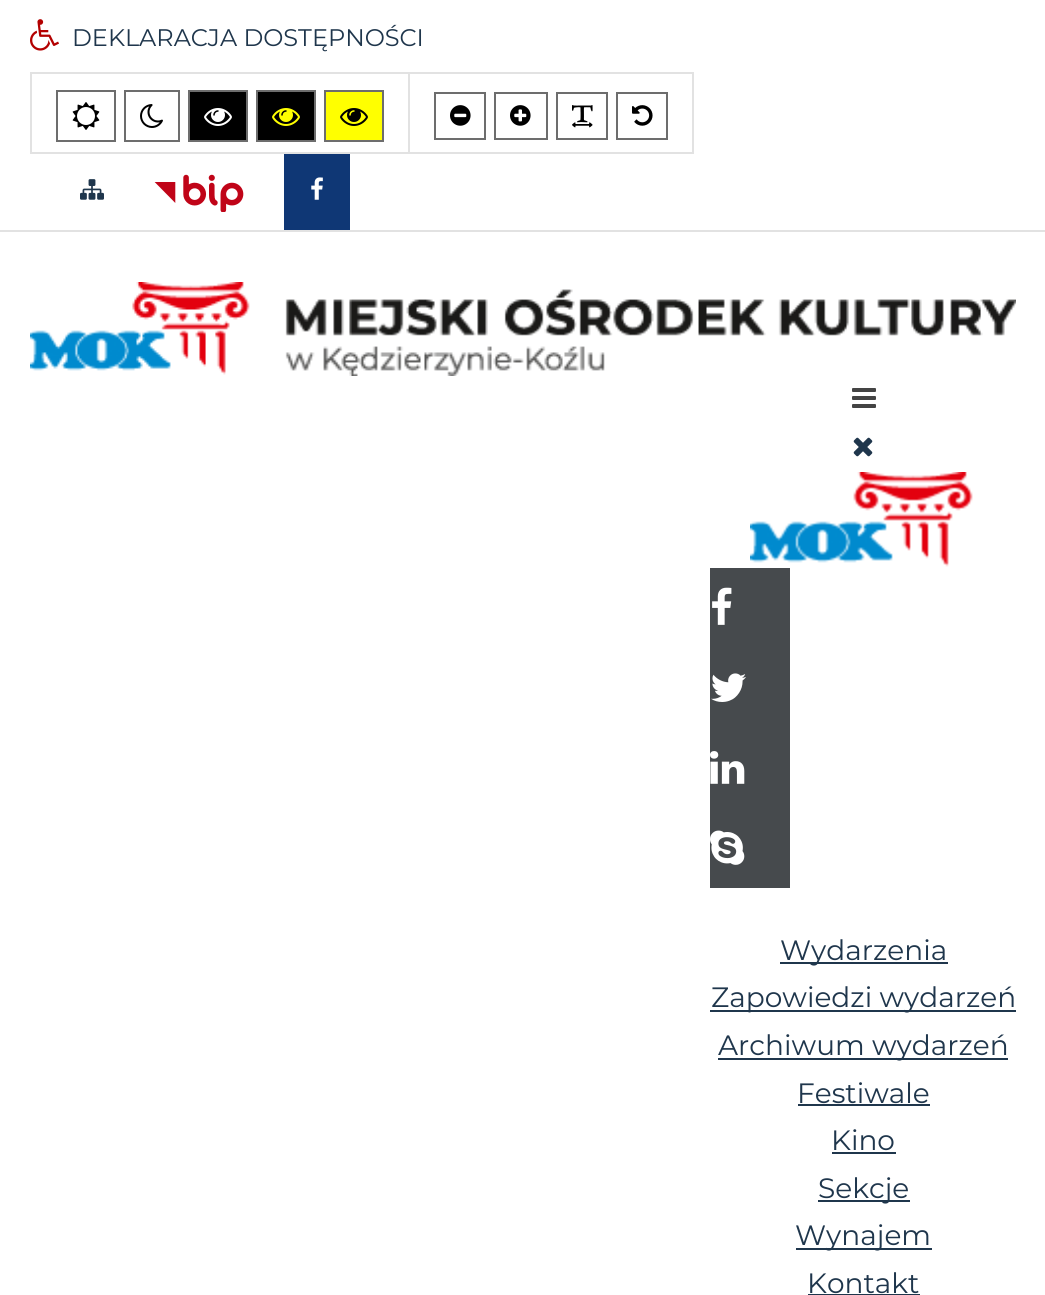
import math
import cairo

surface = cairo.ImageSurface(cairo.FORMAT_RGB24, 1045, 1295)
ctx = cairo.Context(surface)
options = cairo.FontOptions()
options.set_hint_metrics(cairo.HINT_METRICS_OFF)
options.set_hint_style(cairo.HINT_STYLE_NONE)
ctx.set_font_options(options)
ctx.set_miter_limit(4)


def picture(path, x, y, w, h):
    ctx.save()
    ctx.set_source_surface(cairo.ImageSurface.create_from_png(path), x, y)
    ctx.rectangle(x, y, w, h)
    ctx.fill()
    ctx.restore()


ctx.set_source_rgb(1, 1, 1)
ctx.paint()
ctx.set_source_rgb(0.886, 0.886, 0.886)
ctx.rectangle(0, 230, 1045, 2)
ctx.fill()
picture("img1.png", 30, 19, 29, 32)
ctx.select_font_face("Montserrat")
ctx.set_font_size(24)
ctx.set_source_rgb(0.122, 0.212, 0.298)
ctx.move_to(72, 46)
ctx.show_text("DEKLARACJA DOSTĘPNOŚCI")
ctx.rectangle(31, 73, 378, 80)
ctx.set_source_rgb(0.886, 0.886, 0.886)
ctx.stroke()
ctx.rectangle(57, 91, 58, 50)
ctx.set_source_rgb(0.427, 0.427, 0.427)
ctx.stroke()
picture("img2.png", 72, 102, 28, 28)
ctx.rectangle(125, 91, 54, 50)
ctx.stroke()
picture("img3.png", 140, 104, 23, 24)
ctx.set_source_rgb(0, 0, 0)
ctx.rectangle(189, 91, 58, 50)
ctx.fill_preserve()
ctx.set_source_rgb(0.427, 0.427, 0.427)
ctx.stroke()
picture("img4.png", 204, 108, 28, 18)
ctx.set_source_rgb(0, 0, 0)
ctx.rectangle(257, 91, 58, 50)
ctx.fill_preserve()
ctx.set_source_rgb(0.427, 0.427, 0.427)
ctx.stroke()
picture("img5.png", 272, 108, 28, 18)
ctx.set_source_rgb(1, 1, 0)
ctx.rectangle(325, 91, 58, 50)
ctx.fill_preserve()
ctx.set_source_rgb(0.427, 0.427, 0.427)
ctx.stroke()
picture("img6.png", 340, 108, 28, 18)
ctx.rectangle(409, 73, 284, 80)
ctx.set_source_rgb(0.886, 0.886, 0.886)
ctx.stroke()
ctx.rectangle(435, 93, 50, 46)
ctx.set_source_rgb(0.427, 0.427, 0.427)
ctx.stroke()
picture("img7.png", 450, 105, 21, 21)
ctx.rectangle(495, 93, 52, 46)
ctx.stroke()
picture("img8.png", 510, 105, 21, 21)
ctx.rectangle(557, 93, 50, 46)
ctx.stroke()
picture("img9.png", 572, 105, 21, 23)
ctx.rectangle(617, 93, 50, 46)
ctx.stroke()
picture("img10.png", 632, 105, 21, 21)
picture("img11.png", 80, 179, 24, 21)
picture("img12.png", 154, 174, 90, 38)
ctx.set_source_rgb(0.059, 0.216, 0.459)
ctx.rectangle(284, 154, 66, 76)
ctx.fill()
picture("img13.png", 311, 177, 12, 23)
picture("img14.png", 30, 282, 986, 94)
picture("img15.png", 852, 388, 24, 20)
picture("img16.png", 853, 437, 20, 20)
picture("img17.png", 750, 472, 223, 95)
ctx.set_source_rgb(0.275, 0.29, 0.302)
ctx.rectangle(710, 568, 80, 320)
ctx.fill()
picture("img18.png", 712, 587, 20, 38)
picture("img19.png", 711, 673, 35, 29)
picture("img20.png", 710, 751, 35, 33)
picture("img21.png", 710, 830, 35, 35)
ctx.set_source_rgb(0.122, 0.212, 0.298)
ctx.rectangle(780, 962, 168, 2)
ctx.fill()
ctx.set_font_size(28)
ctx.move_to(780, 960)
ctx.show_text("Wydarzenia")
ctx.rectangle(710, 1010, 306, 2)
ctx.fill()
ctx.move_to(711, 1007)
ctx.show_text("Zapowiedzi wydarzeń")
ctx.rectangle(718, 1058, 290, 2)
ctx.fill()
ctx.move_to(718, 1055)
ctx.show_text("Archiwum wydarzeń")
ctx.move_to(797, 1103)
ctx.show_text("Festiwale")
ctx.rectangle(798, 1104, 132, 2)
ctx.fill()
ctx.move_to(831, 1150)
ctx.show_text("Kino")
ctx.rectangle(832, 1152, 64, 2)
ctx.fill()
ctx.rectangle(818, 1200, 92, 2)
ctx.fill()
ctx.move_to(818, 1198)
ctx.show_text("Sekcje")
ctx.rectangle(796, 1248, 136, 2)
ctx.fill()
ctx.move_to(795, 1245)
ctx.show_text("Wynajem")
ctx.move_to(807, 1293)
ctx.show_text("Kontakt")
ctx.rectangle(808, 1294, 112, 1)
ctx.fill()
surface.write_to_png("page.png")
